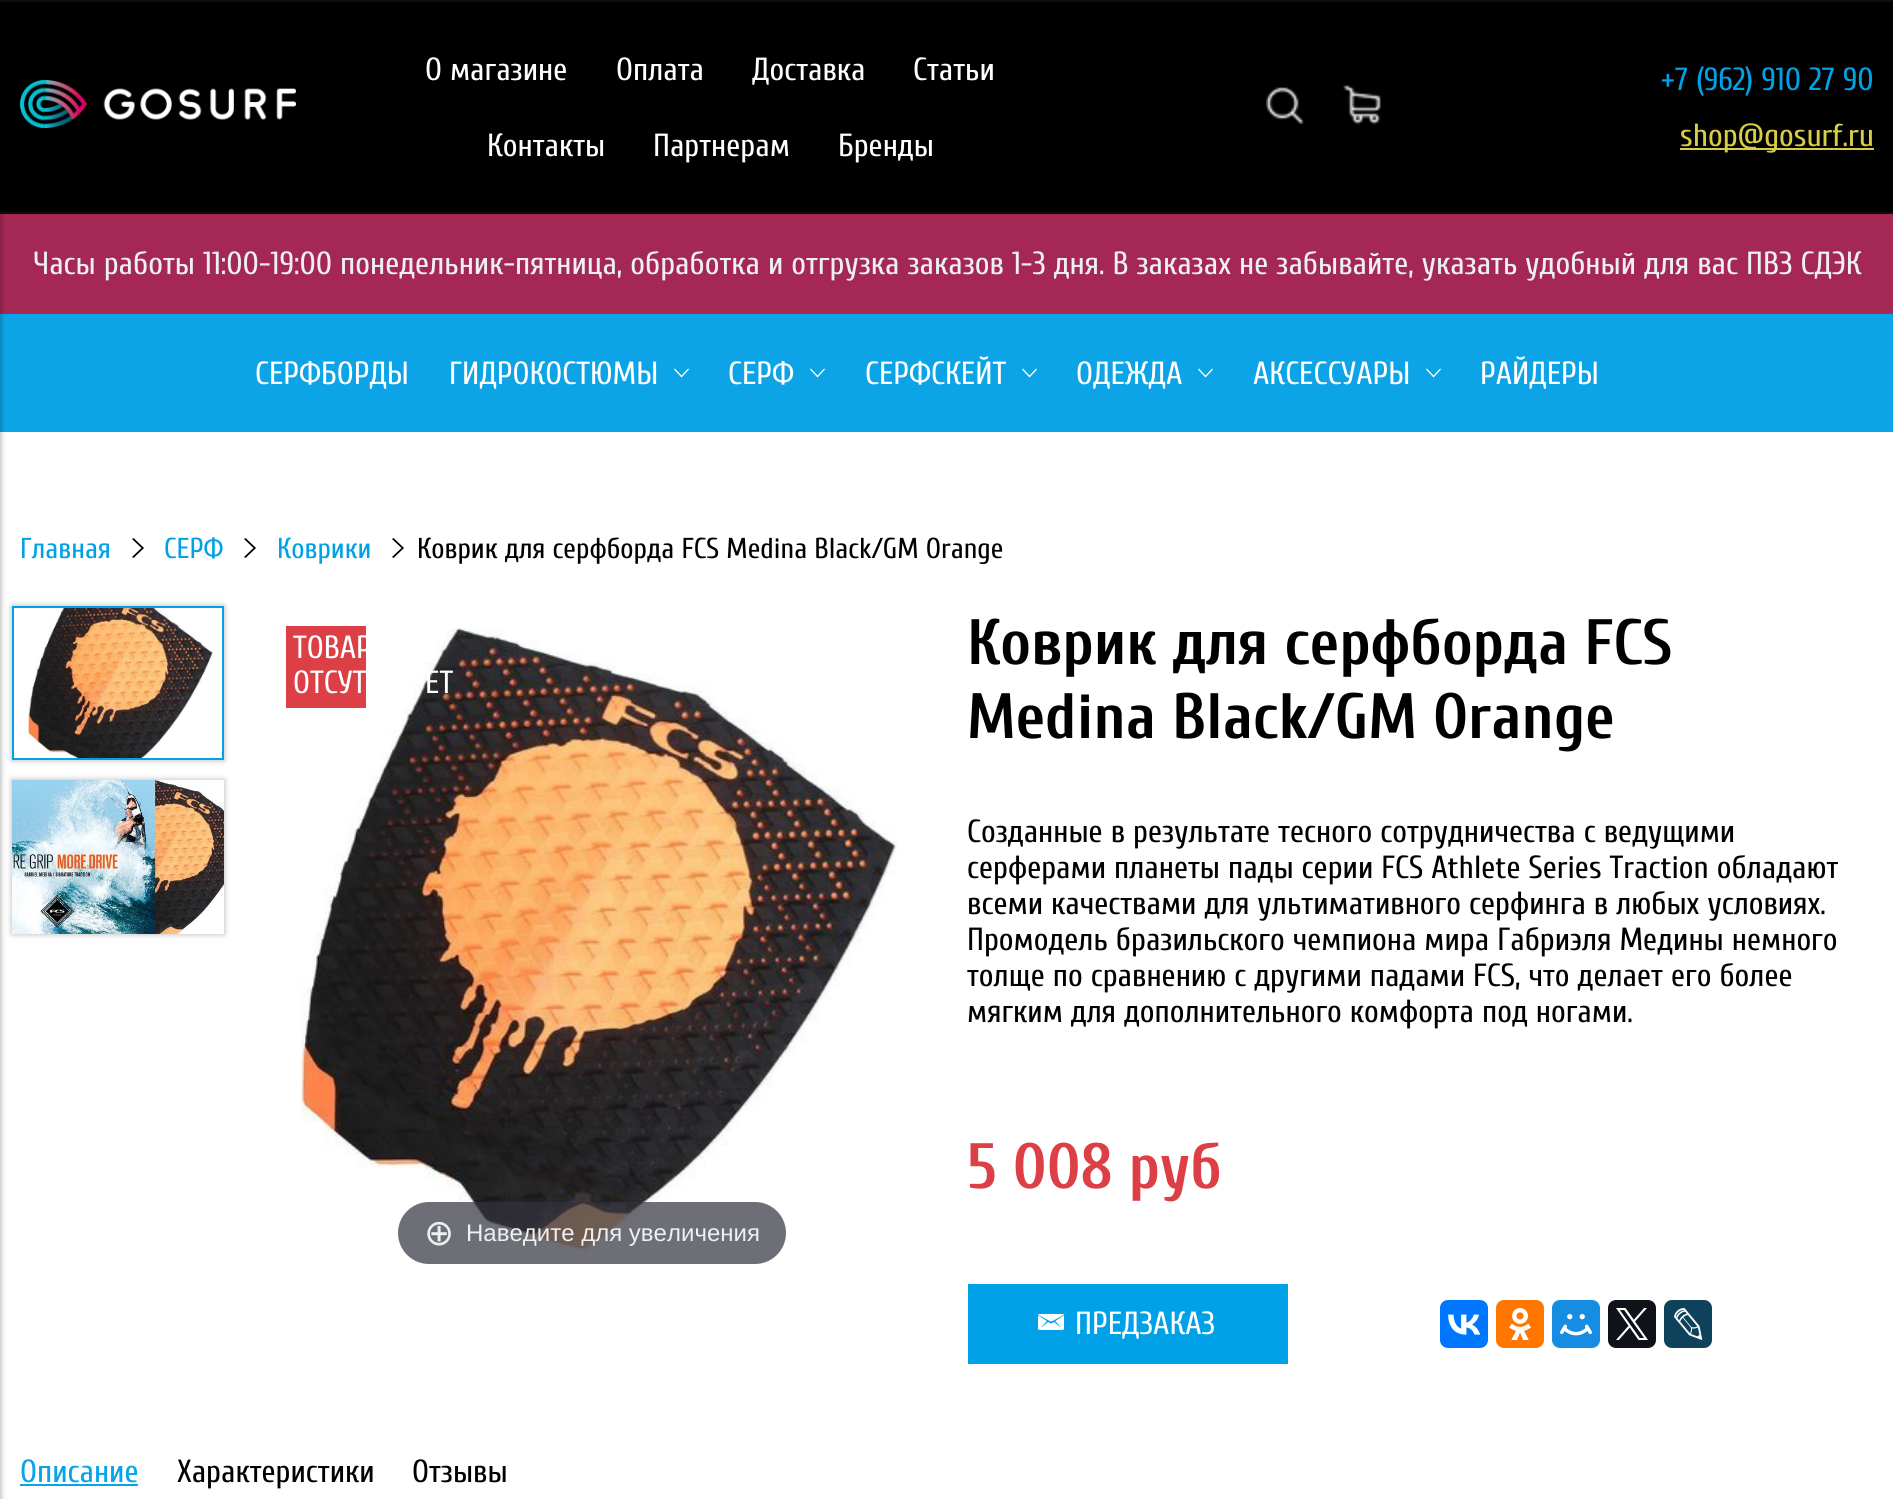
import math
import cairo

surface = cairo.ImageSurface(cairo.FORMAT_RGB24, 1893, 1499)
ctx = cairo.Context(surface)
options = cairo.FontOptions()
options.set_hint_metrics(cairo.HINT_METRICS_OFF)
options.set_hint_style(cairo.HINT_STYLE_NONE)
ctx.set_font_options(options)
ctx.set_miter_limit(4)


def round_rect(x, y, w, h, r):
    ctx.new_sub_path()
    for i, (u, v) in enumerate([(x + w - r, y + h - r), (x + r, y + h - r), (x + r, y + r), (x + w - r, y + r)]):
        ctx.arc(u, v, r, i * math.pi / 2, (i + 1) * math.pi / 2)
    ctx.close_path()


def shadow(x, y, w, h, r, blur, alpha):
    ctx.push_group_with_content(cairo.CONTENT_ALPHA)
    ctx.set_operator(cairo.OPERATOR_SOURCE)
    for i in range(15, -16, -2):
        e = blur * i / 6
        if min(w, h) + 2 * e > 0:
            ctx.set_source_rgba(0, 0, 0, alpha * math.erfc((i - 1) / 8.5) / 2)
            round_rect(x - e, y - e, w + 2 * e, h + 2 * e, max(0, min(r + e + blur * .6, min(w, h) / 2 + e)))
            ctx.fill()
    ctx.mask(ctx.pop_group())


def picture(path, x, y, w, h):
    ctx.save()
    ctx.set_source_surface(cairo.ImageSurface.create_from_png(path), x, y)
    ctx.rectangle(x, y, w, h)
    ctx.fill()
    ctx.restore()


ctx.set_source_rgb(1, 1, 1)
ctx.paint()
ctx.set_source_rgb(0, 0, 0)
ctx.rectangle(0, 2, 1893, 210)
ctx.fill()
ctx.set_source_rgb(0.051, 0.051, 0.051)
ctx.rectangle(0, 212, 1893, 2)
ctx.fill()
ctx.set_source_rgb(0.647, 0.153, 0.329)
ctx.rectangle(0, 214, 1893, 100)
ctx.fill()
ctx.set_source_rgb(0.047, 0.643, 0.902)
ctx.rectangle(0, 314, 1893, 118)
ctx.fill()
ctx.set_source_rgb(0, 0, 0)
shadow(-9, 106, 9, 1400, 0, 3, 0.4)
ctx.set_source_rgb(0.051, 0.051, 0.051)
ctx.rectangle(0, 0, 1893, 2)
ctx.fill()
picture("img1.png", 20, 80, 276, 48)
ctx.select_font_face("Cuprum")
ctx.set_font_size(32)
ctx.set_source_rgb(1, 1, 1)
ctx.move_to(425, 80)
ctx.show_text("О магазине")
ctx.move_to(616, 80)
ctx.show_text("Оплата")
ctx.move_to(752, 80)
ctx.show_text("Доставка")
ctx.move_to(913, 80)
ctx.show_text("Статьи")
ctx.move_to(487, 156)
ctx.show_text("Контакты")
ctx.move_to(653, 156)
ctx.show_text("Партнерам")
ctx.move_to(838, 156)
ctx.show_text("Бренды")
picture("img2.png", 1266, 87, 38, 37)
picture("img3.png", 1343, 85, 38, 40)
ctx.set_source_rgb(0, 0.631, 0.902)
ctx.move_to(1661, 90)
ctx.show_text("+7 (962) 910 27 90")
ctx.set_source_rgb(0.851, 0.808, 0.263)
ctx.rectangle(1680, 148, 194, 2)
ctx.fill()
ctx.move_to(1680, 146)
ctx.show_text("shop@gosurf.ru")
ctx.set_source_rgb(0.925, 0.941, 0.945)
ctx.move_to(33, 274)
ctx.show_text("Часы работы 11:00-19:00 понедельник-пятница, обработка и отгрузка заказов 1-3 дня. В заказах не забывайте, указать удобный для вас ПВЗ СДЭК")
ctx.set_source_rgb(1, 1, 1)
ctx.move_to(255, 384)
ctx.show_text("СЕРФБОРДЫ")
ctx.move_to(449, 384)
ctx.show_text("ГИДРОКОСТЮМЫ")
picture("img4.png", 674, 368, 15, 10)
ctx.move_to(728, 384)
ctx.show_text("СЕРФ")
picture("img4.png", 810, 368, 15, 10)
ctx.move_to(865, 384)
ctx.show_text("СЕРФСКЕЙТ")
picture("img4.png", 1022, 368, 15, 10)
ctx.move_to(1076, 384)
ctx.show_text("ОДЕЖДА")
picture("img4.png", 1198, 368, 15, 10)
ctx.move_to(1253, 384)
ctx.show_text("АКСЕССУАРЫ")
picture("img4.png", 1426, 368, 15, 10)
ctx.move_to(1480, 384)
ctx.show_text("РАЙДЕРЫ")
ctx.set_font_size(28.8)
ctx.set_source_rgb(0, 0.631, 0.902)
ctx.move_to(20, 558)
ctx.show_text("Главная")
ctx.set_source_rgb(0, 0, 0)
ctx.new_path()
ctx.move_to(132, 539)
ctx.line_to(133.5, 538)
ctx.line_to(144, 548)
ctx.line_to(133.5, 558)
ctx.line_to(132, 557)
ctx.line_to(141.5, 548)
ctx.close_path()
ctx.fill()
ctx.set_source_rgb(0, 0.631, 0.902)
ctx.move_to(164, 558)
ctx.show_text("СЕРФ")
ctx.set_source_rgb(0, 0, 0)
ctx.new_path()
ctx.move_to(244, 539)
ctx.line_to(245.5, 538)
ctx.line_to(256, 548)
ctx.line_to(245.5, 558)
ctx.line_to(244, 557)
ctx.line_to(253.5, 548)
ctx.close_path()
ctx.fill()
ctx.set_source_rgb(0, 0.631, 0.902)
ctx.move_to(277, 558)
ctx.show_text("Коврики")
ctx.set_source_rgb(0, 0, 0)
ctx.new_path()
ctx.move_to(392, 539)
ctx.line_to(393.5, 538)
ctx.line_to(404, 548)
ctx.line_to(393.5, 558)
ctx.line_to(392, 557)
ctx.line_to(401.5, 548)
ctx.close_path()
ctx.fill()
ctx.move_to(417, 558)
ctx.show_text("Коврик для серфборда FCS Medina Black/GM Orange")
ctx.save()
ctx.set_fill_rule(cairo.FILL_RULE_EVEN_ODD)
ctx.new_path()
ctx.move_to(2, 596)
ctx.line_to(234, 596)
ctx.line_to(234, 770)
ctx.line_to(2, 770)
ctx.close_path()
ctx.move_to(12, 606)
ctx.line_to(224, 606)
ctx.line_to(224, 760)
ctx.line_to(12, 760)
ctx.close_path()
ctx.clip()
ctx.set_source_rgb(0, 0, 0)
shadow(12, 606, 212, 154, 0, 3, 0.3)
ctx.restore()
ctx.rectangle(13, 607, 210, 152)
ctx.set_source_rgb(0, 0.631, 0.902)
ctx.stroke()
picture("img5.png", 28, 608, 185, 150)
ctx.set_source_rgb(0, 0, 0)
shadow(12, 780, 212, 154, 0, 3, 0.3)
picture("img6.png", 12, 780, 212, 154)
picture("img7.png", 300, 628, 597, 629)
ctx.set_source_rgb(0.867, 0.247, 0.275)
ctx.rectangle(286, 626, 80, 82)
ctx.fill()
ctx.set_font_size(32)
ctx.set_source_rgb(1, 1, 1)
ctx.move_to(293, 658)
ctx.show_text("ТОВАР")
ctx.move_to(293, 693)
ctx.show_text("ОТСУТ")
ctx.move_to(425, 693)
ctx.show_text("ЕТ")
ctx.set_source_rgba(0.192, 0.2, 0.239, 0.7)
round_rect(398, 1202, 388, 62, 31)
ctx.fill()
ctx.select_font_face("DejaVu Sans")
ctx.set_font_size(36)
ctx.set_source_rgb(0.925, 0.941, 0.945)
ctx.move_to(424, 1245)
ctx.show_text("⊕")
ctx.select_font_face("Liberation Sans")
ctx.set_font_size(24)
ctx.move_to(466, 1241)
ctx.show_text("Наведите для увеличения")
ctx.select_font_face("Cuprum", cairo.FONT_SLANT_NORMAL, cairo.FONT_WEIGHT_BOLD)
ctx.set_font_size(64)
ctx.set_source_rgb(0, 0, 0)
ctx.move_to(967, 664)
ctx.show_text("Коврик для серфборда FCS")
ctx.move_to(967, 738)
ctx.show_text("Medina Black/GM Orange")
ctx.select_font_face("Cuprum")
ctx.set_font_size(32)
ctx.move_to(967, 842)
ctx.show_text("Созданные в результате тесного сотрудничества с ведущими")
ctx.move_to(967, 878)
ctx.show_text("серферами планеты пады серии FCS Athlete Series Traction обладают")
ctx.move_to(967, 914)
ctx.show_text("всеми качествами для ультимативного серфинга в любых условиях.")
ctx.move_to(967, 950)
ctx.show_text("Промодель бразильского чемпиона мира Габриэля Медины немного")
ctx.move_to(967, 986)
ctx.show_text("толще по сравнению с другими падами FCS, что делает его более")
ctx.move_to(967, 1022)
ctx.show_text("мягким для дополнительного комфорта под ногами.")
ctx.select_font_face("Cuprum", cairo.FONT_SLANT_NORMAL, cairo.FONT_WEIGHT_BOLD)
ctx.set_font_size(64)
ctx.set_source_rgb(0.867, 0.247, 0.275)
ctx.move_to(967, 1188)
ctx.show_text("5 008 руб")
ctx.set_source_rgb(0, 0.631, 0.902)
ctx.rectangle(968, 1284, 320, 80)
ctx.fill()
picture("img8.png", 1038, 1314, 26, 16)
ctx.select_font_face("Cuprum")
ctx.set_font_size(32)
ctx.set_source_rgb(1, 1, 1)
ctx.move_to(1075, 1334)
ctx.show_text("ПРЕДЗАКАЗ")
ctx.set_source_rgb(0, 0.467, 1)
round_rect(1440, 1300, 48, 48, 8)
ctx.fill()
picture("img9.png", 1448, 1314, 33, 21)
ctx.set_source_rgb(1, 0.467, 0)
round_rect(1496, 1300, 48, 48, 8)
ctx.fill()
picture("img10.png", 1509, 1308, 22, 32)
ctx.set_source_rgb(0.086, 0.553, 0.886)
round_rect(1552, 1300, 48, 48, 8)
ctx.fill()
picture("img11.png", 1560, 1314, 32, 22)
ctx.set_source_rgb(0.059, 0.078, 0.098)
round_rect(1608, 1300, 48, 48, 8)
ctx.fill()
picture("img12.png", 1616, 1308, 32, 32)
ctx.set_source_rgb(0.051, 0.259, 0.353)
round_rect(1664, 1300, 48, 48, 8)
ctx.fill()
picture("img13.png", 1674, 1308, 29, 32)
ctx.set_source_rgb(0.035, 0.643, 0.902)
ctx.move_to(20, 1482)
ctx.show_text("Описание")
ctx.rectangle(20, 1484, 118, 2)
ctx.fill()
ctx.set_source_rgb(0, 0, 0)
ctx.move_to(177, 1482)
ctx.show_text("Характеристики")
ctx.move_to(412, 1482)
ctx.show_text("Отзывы")
surface.write_to_png("page.png")
